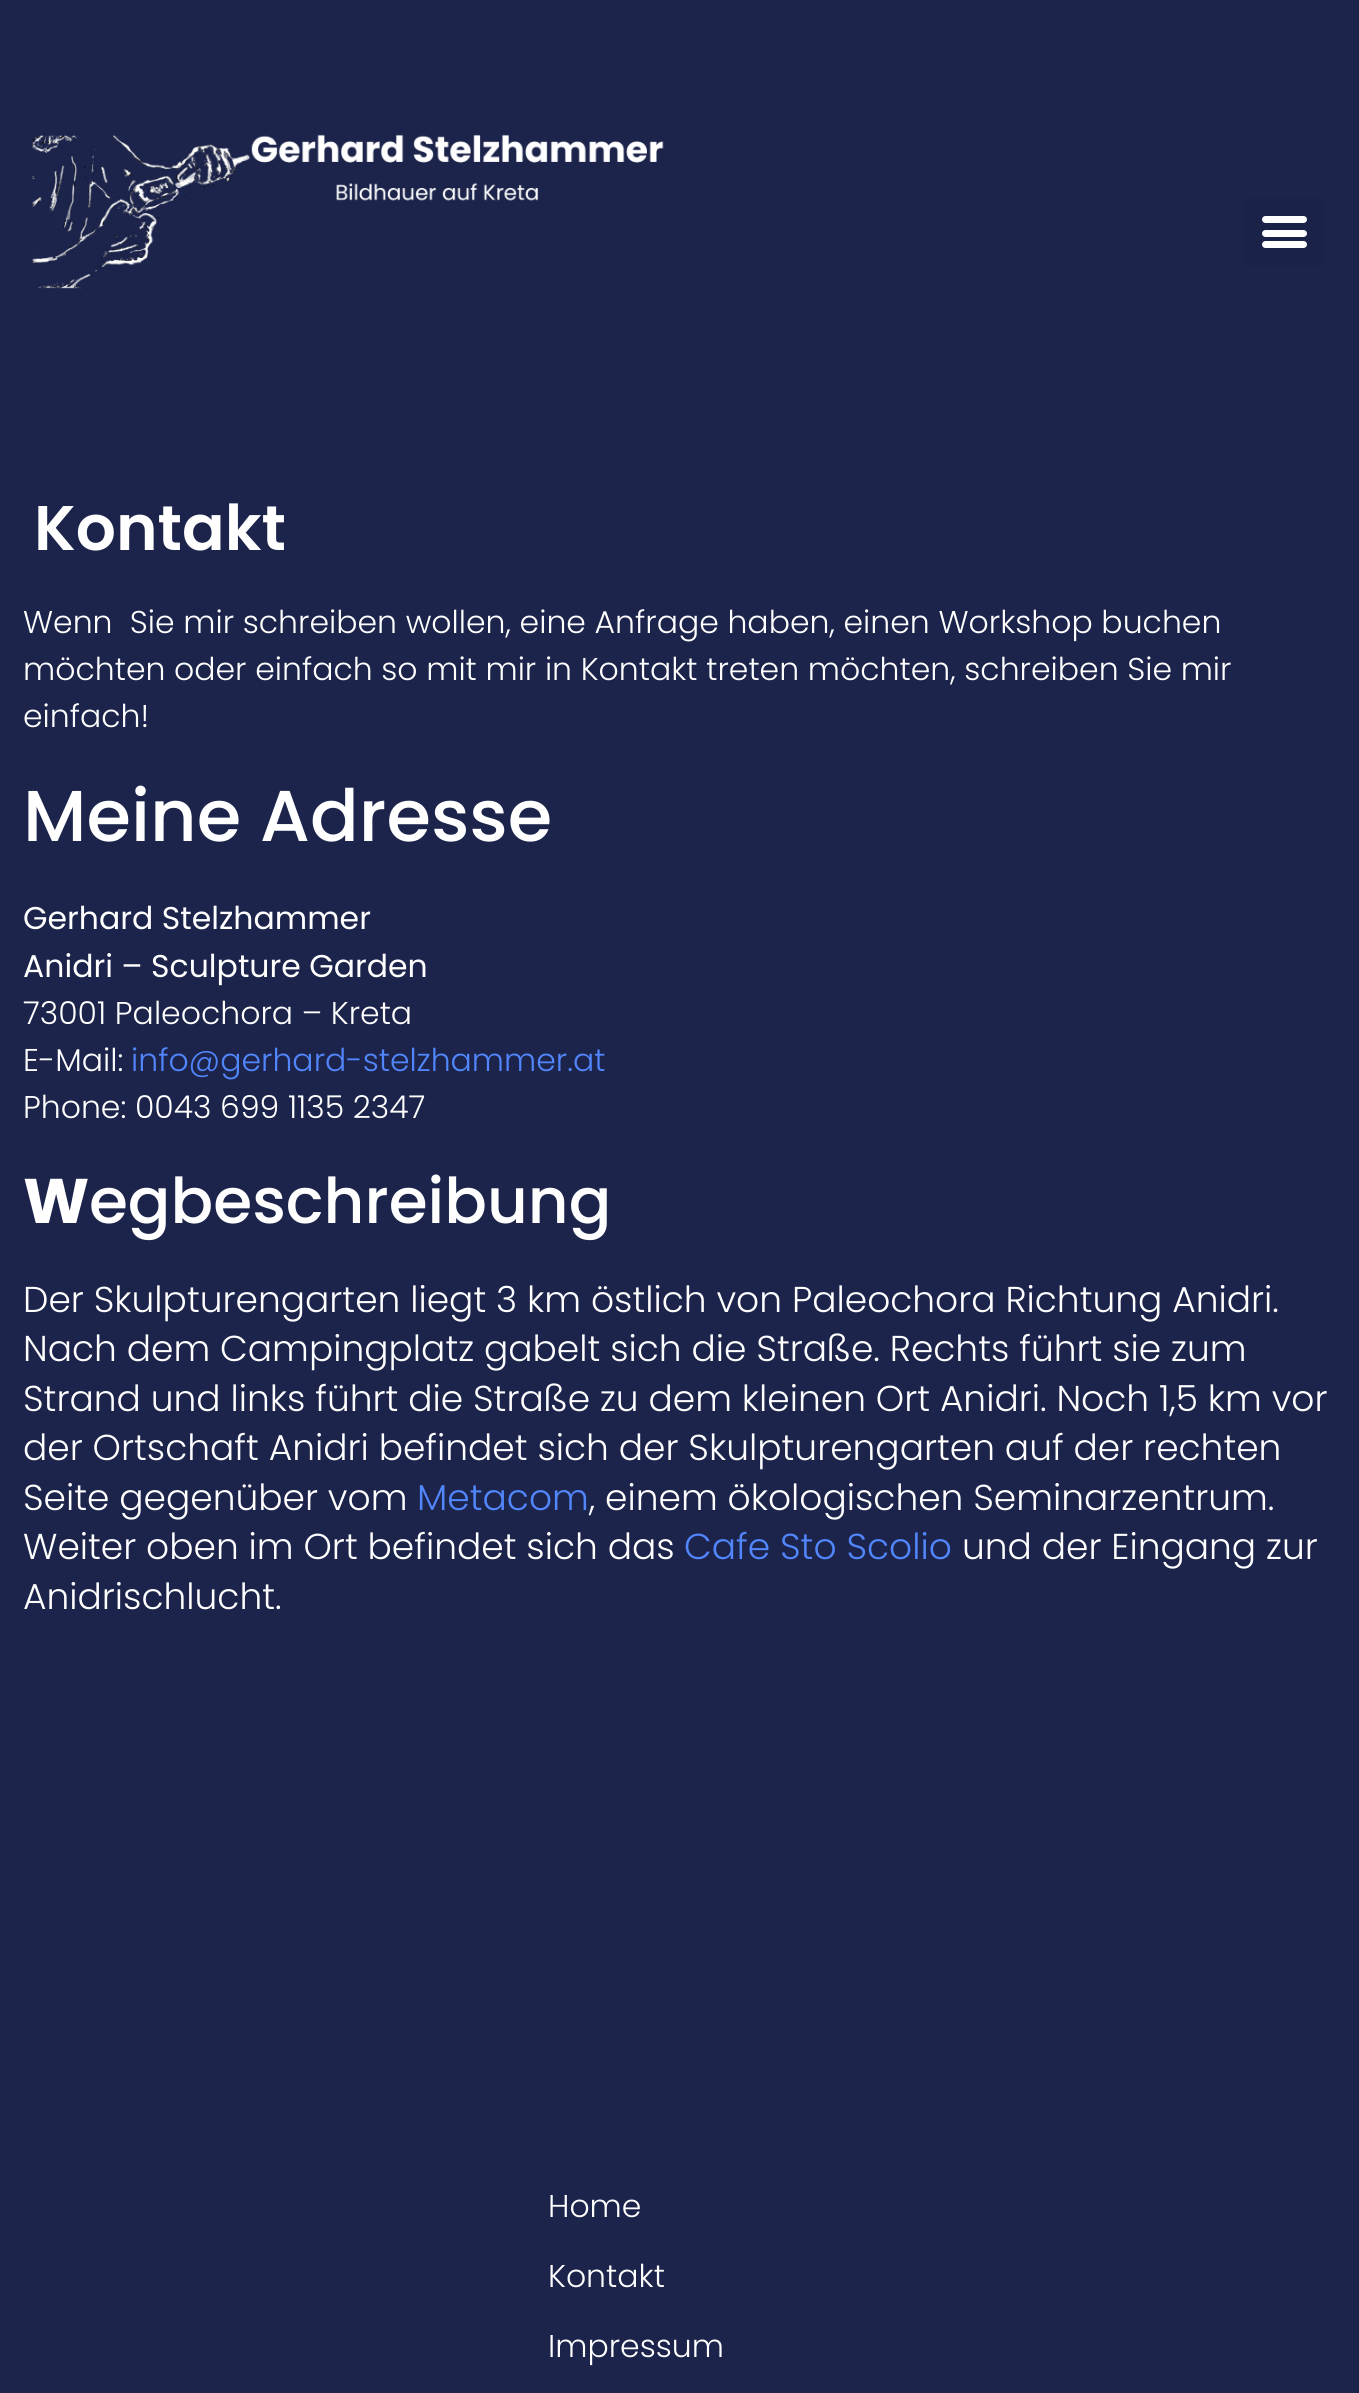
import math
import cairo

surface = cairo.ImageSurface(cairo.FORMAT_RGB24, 1359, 2393)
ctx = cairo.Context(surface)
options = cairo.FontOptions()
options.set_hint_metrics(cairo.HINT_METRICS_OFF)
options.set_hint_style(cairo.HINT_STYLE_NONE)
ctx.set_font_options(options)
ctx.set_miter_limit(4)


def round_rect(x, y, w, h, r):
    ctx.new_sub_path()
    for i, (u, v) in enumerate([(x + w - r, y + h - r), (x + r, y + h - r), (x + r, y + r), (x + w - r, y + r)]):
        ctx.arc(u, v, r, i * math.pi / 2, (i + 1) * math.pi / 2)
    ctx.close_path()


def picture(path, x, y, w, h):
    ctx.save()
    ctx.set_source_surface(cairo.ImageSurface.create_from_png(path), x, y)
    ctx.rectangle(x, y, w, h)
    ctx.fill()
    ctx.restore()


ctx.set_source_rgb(0.11, 0.141, 0.294)
ctx.paint()
picture("img1.png", 32, 134, 632, 155)
ctx.set_source_rgb(0.106, 0.133, 0.278)
round_rect(1244, 198, 81, 68, 7)
ctx.fill()
ctx.set_source_rgb(1, 1, 1)
round_rect(1262, 230, 45, 7, 3.5)
ctx.fill()
round_rect(1262, 216, 45, 7, 3.5)
ctx.fill()
round_rect(1262, 241, 45, 7, 3.5)
ctx.fill()
ctx.select_font_face("Poppins SemiBold")
ctx.set_font_size(63)
ctx.move_to(34, 550)
ctx.show_text("Kontakt")
ctx.select_font_face("Poppins Light")
ctx.set_font_size(31.5)
ctx.move_to(23, 633)
ctx.show_text("Wenn  Sie mir schreiben wollen, eine Anfrage haben, einen Workshop buchen")
ctx.move_to(23, 680)
ctx.show_text("möchten oder einfach so mit mir in Kontakt treten möchten, schreiben Sie mir")
ctx.move_to(23, 727)
ctx.show_text("einfach!")
ctx.select_font_face("Poppins Medium")
ctx.set_font_size(72)
ctx.move_to(23, 841)
ctx.show_text("Meine Adresse")
ctx.select_font_face("Poppins")
ctx.set_font_size(31.5)
ctx.move_to(23, 929)
ctx.show_text("Gerhard Stelzhammer")
ctx.move_to(23, 977)
ctx.show_text("Anidri – Sculpture Garden")
ctx.select_font_face("Poppins Light")
ctx.move_to(23, 1024)
ctx.show_text("73001 Paleochora – Kreta")
ctx.move_to(23, 1071)
ctx.show_text("E-Mail:")
ctx.set_source_rgb(0.318, 0.525, 0.988)
ctx.move_to(131, 1071)
ctx.show_text("info@gerhard-stelzhammer.at")
ctx.set_source_rgb(1, 1, 1)
ctx.move_to(23, 1118)
ctx.show_text("Phone: 0043 699 1135 2347")
ctx.select_font_face("Poppins", cairo.FONT_SLANT_NORMAL, cairo.FONT_WEIGHT_BOLD)
ctx.set_font_size(63)
ctx.move_to(23, 1223)
ctx.show_text("W")
ctx.select_font_face("Poppins Medium")
ctx.move_to(89, 1223)
ctx.show_text("egbeschreibung")
ctx.select_font_face("Poppins Light")
ctx.set_font_size(36)
ctx.move_to(23, 1312)
ctx.show_text("Der Skulpturengarten liegt 3 km östlich von Paleochora Richtung Anidri.")
ctx.move_to(23, 1361)
ctx.show_text("Nach dem Campingplatz gabelt sich die Straße. Rechts führt sie zum")
ctx.move_to(23, 1411)
ctx.show_text("Strand und links führt die Straße zu dem kleinen Ort Anidri. Noch 1,5 km vor")
ctx.move_to(23, 1460)
ctx.show_text("der Ortschaft Anidri befindet sich der Skulpturengarten auf der rechten")
ctx.move_to(23, 1510)
ctx.show_text("Seite gegenüber vom")
ctx.set_source_rgb(0.318, 0.525, 0.988)
ctx.move_to(417, 1510)
ctx.show_text("Metacom")
ctx.set_source_rgb(1, 1, 1)
ctx.move_to(589, 1510)
ctx.show_text(", einem ökologischen Seminarzentrum.")
ctx.move_to(23, 1559)
ctx.show_text("Weiter oben im Ort befindet sich das")
ctx.set_source_rgb(0.318, 0.525, 0.988)
ctx.move_to(684, 1559)
ctx.show_text("Cafe Sto Scolio")
ctx.set_source_rgb(1, 1, 1)
ctx.move_to(962, 1559)
ctx.show_text("und der Eingang zur")
ctx.move_to(23, 1609)
ctx.show_text("Anidrischlucht.")
ctx.set_font_size(31.5)
ctx.move_to(548, 2217)
ctx.show_text("Home")
ctx.move_to(548, 2287)
ctx.show_text("Kontakt")
ctx.move_to(548, 2357)
ctx.show_text("Impressum")
surface.write_to_png("page.png")
